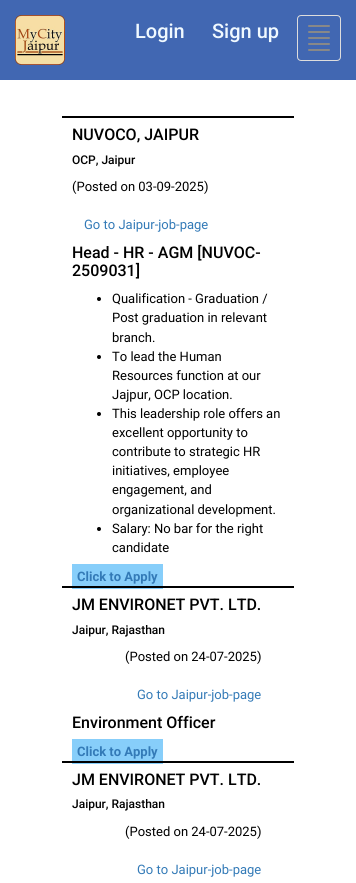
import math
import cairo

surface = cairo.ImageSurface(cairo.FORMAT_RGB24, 356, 883)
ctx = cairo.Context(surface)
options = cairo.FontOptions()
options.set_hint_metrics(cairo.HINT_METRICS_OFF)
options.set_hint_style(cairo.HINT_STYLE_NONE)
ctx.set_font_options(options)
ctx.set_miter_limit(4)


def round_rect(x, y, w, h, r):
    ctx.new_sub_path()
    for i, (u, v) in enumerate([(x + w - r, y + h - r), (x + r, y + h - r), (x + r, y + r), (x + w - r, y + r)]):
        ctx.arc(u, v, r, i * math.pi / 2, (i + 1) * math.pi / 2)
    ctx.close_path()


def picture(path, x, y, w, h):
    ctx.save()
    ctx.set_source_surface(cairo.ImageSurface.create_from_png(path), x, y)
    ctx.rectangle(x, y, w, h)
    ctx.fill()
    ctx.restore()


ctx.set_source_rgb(1, 1, 1)
ctx.paint()
ctx.set_source_rgb(0.255, 0.404, 0.698)
ctx.rectangle(0, 0, 356, 80)
ctx.fill()
picture("img1.png", 15, 15, 50, 50)
ctx.select_font_face("Roboto Medium")
ctx.set_font_size(20)
ctx.set_source_rgb(0.941, 0.973, 1)
ctx.move_to(135, 38)
ctx.show_text("Login")
ctx.move_to(212, 38)
ctx.show_text("Sign up")
round_rect(297.5, 15.5, 43, 45, 3.5)
ctx.set_source_rgb(0.867, 0.867, 0.867)
ctx.set_line_width(1)
ctx.stroke()
ctx.set_source_rgb(0.533, 0.533, 0.533)
round_rect(308, 25, 22, 2, 1)
ctx.fill()
round_rect(308, 31, 22, 2, 1)
ctx.fill()
round_rect(308, 37, 22, 2, 1)
ctx.fill()
round_rect(308, 43, 22, 2, 1)
ctx.fill()
round_rect(308, 49, 22, 2, 1)
ctx.fill()
ctx.set_source_rgb(0, 0, 0)
ctx.rectangle(62, 116, 232, 2)
ctx.fill()
ctx.set_font_size(16)
ctx.move_to(72, 140)
ctx.show_text("NUVOCO, JAIPUR")
ctx.set_font_size(12)
ctx.move_to(72, 164)
ctx.show_text("OCP, Jaipur")
ctx.select_font_face("Roboto")
ctx.set_font_size(13)
ctx.move_to(72, 191)
ctx.show_text("(Posted on 03-09-2025)")
ctx.set_source_rgb(0.2, 0.478, 0.718)
ctx.move_to(84, 229)
ctx.show_text("Go to Jaipur-job-page")
ctx.select_font_face("Roboto Medium")
ctx.set_font_size(16)
ctx.set_source_rgb(0, 0, 0)
ctx.move_to(72, 258)
ctx.show_text("Head - HR - AGM [NUVOC-")
ctx.move_to(72, 276)
ctx.show_text("2509031]")
ctx.new_path()
ctx.arc(99, 299, 2, 0, 2 * math.pi)
ctx.fill()
ctx.select_font_face("Roboto")
ctx.set_font_size(13)
ctx.move_to(112, 303)
ctx.show_text("Qualification - Graduation /")
ctx.move_to(112, 322)
ctx.show_text("Post graduation in relevant")
ctx.move_to(112, 342)
ctx.show_text("branch.")
ctx.new_path()
ctx.arc(99, 357, 2, 0, 2 * math.pi)
ctx.fill()
ctx.move_to(112, 361)
ctx.show_text("To lead the Human")
ctx.move_to(112, 380)
ctx.show_text("Resources function at our")
ctx.move_to(112, 399)
ctx.show_text("Jajpur, OCP location.")
ctx.new_path()
ctx.arc(99, 414, 2, 0, 2 * math.pi)
ctx.fill()
ctx.move_to(112, 418)
ctx.show_text("This leadership role offers an")
ctx.move_to(112, 437)
ctx.show_text("excellent opportunity to")
ctx.move_to(112, 456)
ctx.show_text("contribute to strategic HR")
ctx.move_to(112, 475)
ctx.show_text("initiatives, employee")
ctx.move_to(112, 494)
ctx.show_text("engagement, and")
ctx.move_to(112, 514)
ctx.show_text("organizational development.")
ctx.new_path()
ctx.arc(99, 529, 2, 0, 2 * math.pi)
ctx.fill()
ctx.move_to(112, 533)
ctx.show_text("Salary: No bar for the right")
ctx.move_to(112, 552)
ctx.show_text("candidate")
ctx.set_source_rgb(0.529, 0.808, 0.98)
ctx.rectangle(72, 564, 91, 25)
ctx.fill()
ctx.select_font_face("Roboto", cairo.FONT_SLANT_NORMAL, cairo.FONT_WEIGHT_BOLD)
ctx.set_source_rgb(0.2, 0.478, 0.718)
ctx.move_to(77, 581)
ctx.show_text("Click to Apply")
ctx.set_source_rgb(0, 0, 0)
ctx.rectangle(62, 586, 232, 2)
ctx.fill()
ctx.select_font_face("Roboto Medium")
ctx.set_font_size(16)
ctx.move_to(72, 610)
ctx.show_text("JM ENVIRONET PVT. LTD.")
ctx.set_font_size(12)
ctx.move_to(72, 634)
ctx.show_text("Jaipur, Rajasthan")
ctx.select_font_face("Roboto")
ctx.set_font_size(13)
ctx.move_to(125, 661)
ctx.show_text("(Posted on 24-07-2025)")
ctx.set_source_rgb(0.2, 0.478, 0.718)
ctx.move_to(137, 699)
ctx.show_text("Go to Jaipur-job-page")
ctx.select_font_face("Roboto Medium")
ctx.set_font_size(16)
ctx.set_source_rgb(0, 0, 0)
ctx.move_to(72, 728)
ctx.show_text("Environment Officer")
ctx.set_source_rgb(0.529, 0.808, 0.98)
ctx.rectangle(72, 739, 91, 25)
ctx.fill()
ctx.select_font_face("Roboto", cairo.FONT_SLANT_NORMAL, cairo.FONT_WEIGHT_BOLD)
ctx.set_font_size(13)
ctx.set_source_rgb(0.2, 0.478, 0.718)
ctx.move_to(77, 756)
ctx.show_text("Click to Apply")
ctx.set_source_rgb(0, 0, 0)
ctx.rectangle(62, 761, 232, 2)
ctx.fill()
ctx.select_font_face("Roboto Medium")
ctx.set_font_size(16)
ctx.move_to(72, 785)
ctx.show_text("JM ENVIRONET PVT. LTD.")
ctx.set_font_size(12)
ctx.move_to(72, 808)
ctx.show_text("Jaipur, Rajasthan")
ctx.select_font_face("Roboto")
ctx.set_font_size(13)
ctx.move_to(125, 836)
ctx.show_text("(Posted on 24-07-2025)")
ctx.set_source_rgb(0.2, 0.478, 0.718)
ctx.move_to(137, 874)
ctx.show_text("Go to Jaipur-job-page")
surface.write_to_png("page.png")
